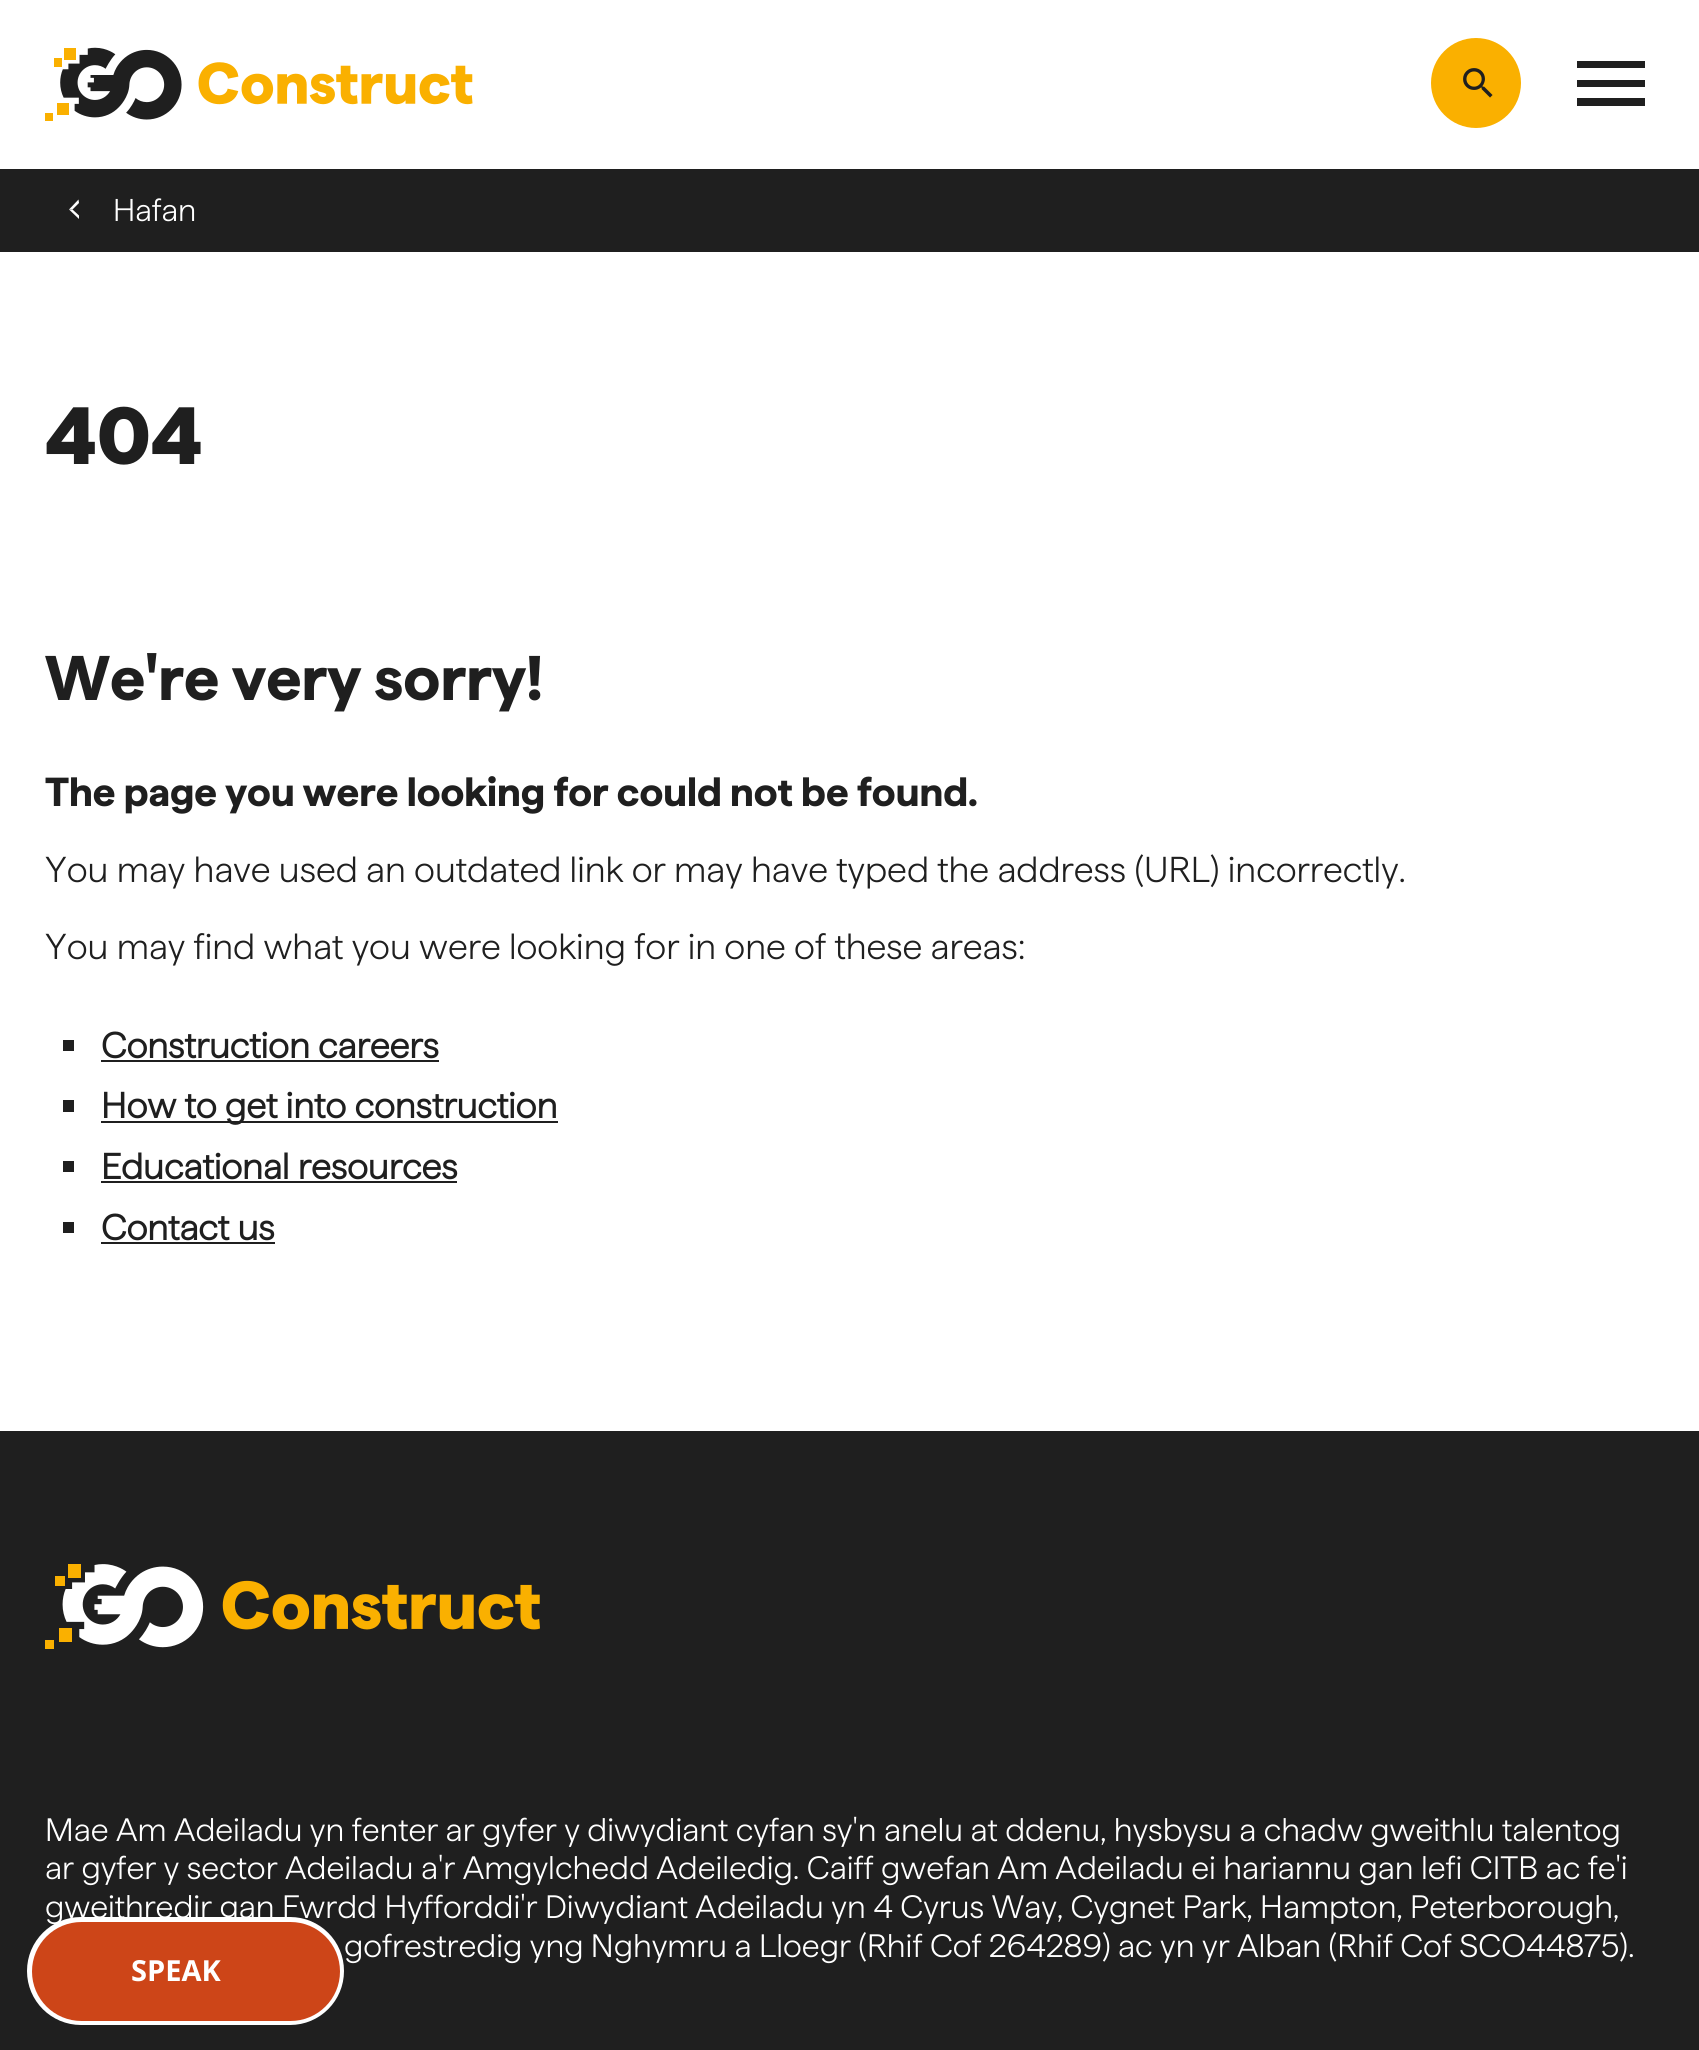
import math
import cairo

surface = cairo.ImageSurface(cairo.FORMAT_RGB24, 1699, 2050)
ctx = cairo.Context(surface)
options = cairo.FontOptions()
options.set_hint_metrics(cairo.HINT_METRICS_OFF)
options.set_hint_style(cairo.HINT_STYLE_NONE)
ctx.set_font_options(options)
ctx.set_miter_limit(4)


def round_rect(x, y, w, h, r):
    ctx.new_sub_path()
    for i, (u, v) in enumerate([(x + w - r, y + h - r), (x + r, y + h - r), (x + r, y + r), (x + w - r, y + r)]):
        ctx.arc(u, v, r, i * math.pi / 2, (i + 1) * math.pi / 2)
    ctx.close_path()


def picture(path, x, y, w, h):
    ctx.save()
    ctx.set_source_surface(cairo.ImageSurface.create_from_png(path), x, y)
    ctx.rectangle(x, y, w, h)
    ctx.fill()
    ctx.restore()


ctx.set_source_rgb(1, 1, 1)
ctx.paint()
picture("img1.png", 45, 47, 428, 74)
ctx.set_source_rgb(0.98, 0.69, 0)
ctx.arc(1476, 83, 45, 0, 2 * math.pi)
ctx.fill()
picture("img2.png", 1463, 68, 30, 30)
ctx.set_source_rgb(0.122, 0.122, 0.122)
ctx.new_path()
ctx.move_to(1577, 61)
ctx.line_to(1645, 61)
ctx.line_to(1645, 68)
ctx.line_to(1577, 68)
ctx.close_path()
ctx.move_to(1577, 87)
ctx.line_to(1577, 80)
ctx.line_to(1645, 80)
ctx.line_to(1645, 87)
ctx.close_path()
ctx.move_to(1577, 106)
ctx.line_to(1577, 98)
ctx.line_to(1645, 98)
ctx.line_to(1645, 106)
ctx.close_path()
ctx.fill()
ctx.rectangle(0, 169, 1699, 83)
ctx.fill()
ctx.set_source_rgb(1, 1, 1)
ctx.new_path()
ctx.move_to(79, 219)
ctx.line_to(69, 209.5)
ctx.line_to(72.5, 209.5)
ctx.line_to(79, 215.5)
ctx.close_path()
ctx.fill()
ctx.new_path()
ctx.move_to(69, 209.5)
ctx.line_to(78.5, 199.5)
ctx.line_to(79, 203)
ctx.line_to(72.5, 209.5)
ctx.close_path()
ctx.fill()
ctx.select_font_face("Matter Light")
ctx.set_font_size(31.5)
ctx.move_to(113, 221)
ctx.show_text("Hafan")
ctx.select_font_face("Matter Black")
ctx.set_font_size(81)
ctx.set_source_rgb(0.122, 0.122, 0.122)
ctx.move_to(45, 464)
ctx.show_text("404")
ctx.select_font_face("Matter", cairo.FONT_SLANT_NORMAL, cairo.FONT_WEIGHT_BOLD)
ctx.set_font_size(63)
ctx.move_to(45, 700)
ctx.show_text("We're very sorry!")
ctx.set_font_size(40.5)
ctx.move_to(45, 806)
ctx.show_text("The page you were looking for could not be found.")
ctx.select_font_face("Matter Light")
ctx.set_font_size(36)
ctx.move_to(45, 882)
ctx.show_text("You may have used an outdated link or may have typed the address (URL) incorrectly.")
ctx.move_to(45, 959)
ctx.show_text("You may find what you were looking for in one of these areas:")
ctx.rectangle(63, 1040, 11, 11)
ctx.fill()
ctx.select_font_face("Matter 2", cairo.FONT_SLANT_NORMAL, cairo.FONT_WEIGHT_BOLD)
ctx.move_to(101, 1058)
ctx.show_text("Construction careers")
ctx.rectangle(101, 1060, 338, 2)
ctx.fill()
ctx.rectangle(63, 1100, 11, 12)
ctx.fill()
ctx.rectangle(101, 1121, 457, 2)
ctx.fill()
ctx.move_to(101, 1118)
ctx.show_text("How to get into construction")
ctx.rectangle(63, 1161, 11, 11)
ctx.fill()
ctx.move_to(101, 1179)
ctx.show_text("Educational resources")
ctx.rectangle(101, 1181, 356, 2)
ctx.fill()
ctx.rectangle(63, 1222, 11, 11)
ctx.fill()
ctx.move_to(101, 1240)
ctx.show_text("Contact us")
ctx.rectangle(101, 1242, 174, 2)
ctx.fill()
ctx.rectangle(0, 1431, 1699, 619)
ctx.fill()
ctx.set_source_rgb(1, 1, 1)
round_rect(27, 1917, 317, 108, 54)
ctx.fill()
ctx.select_font_face("Matter Light")
ctx.set_font_size(32.4)
ctx.move_to(45, 1918)
ctx.show_text("gweithredir gan Fwrdd Hyfforddi'r Diwydiant Adeiladu yn 4 Cyrus Way, Cygnet Park, Hampton, Peterborough,")
ctx.set_source_rgb(0.804, 0.271, 0.094)
round_rect(34.5, 1924.5, 303, 94, 47)
ctx.fill_preserve()
ctx.set_line_width(5)
ctx.stroke()
ctx.select_font_face("Open Sans", cairo.FONT_SLANT_NORMAL, cairo.FONT_WEIGHT_BOLD)
ctx.set_font_size(29)
ctx.set_source_rgb(1, 1, 1)
ctx.move_to(131, 1981)
ctx.show_text("SPEAK")
picture("img3.png", 45, 1564, 495, 85)
ctx.select_font_face("Matter Light")
ctx.set_font_size(32.4)
ctx.move_to(45, 1841)
ctx.show_text("Mae Am Adeiladu yn fenter ar gyfer y diwydiant cyfan sy'n anelu at ddenu, hysbysu a chadw gweithlu talentog")
ctx.move_to(45, 1879)
ctx.show_text("ar gyfer y sector Adeiladu a'r Amgylchedd Adeiledig. Caiff gwefan Am Adeiladu ei hariannu gan lefi CITB ac fe'i")
ctx.move_to(344, 1957)
ctx.show_text("gofrestredig yng Nghymru a Lloegr (Rhif Cof 264289) ac yn yr Alban (Rhif Cof SCO44875).")
surface.write_to_png("page.png")
